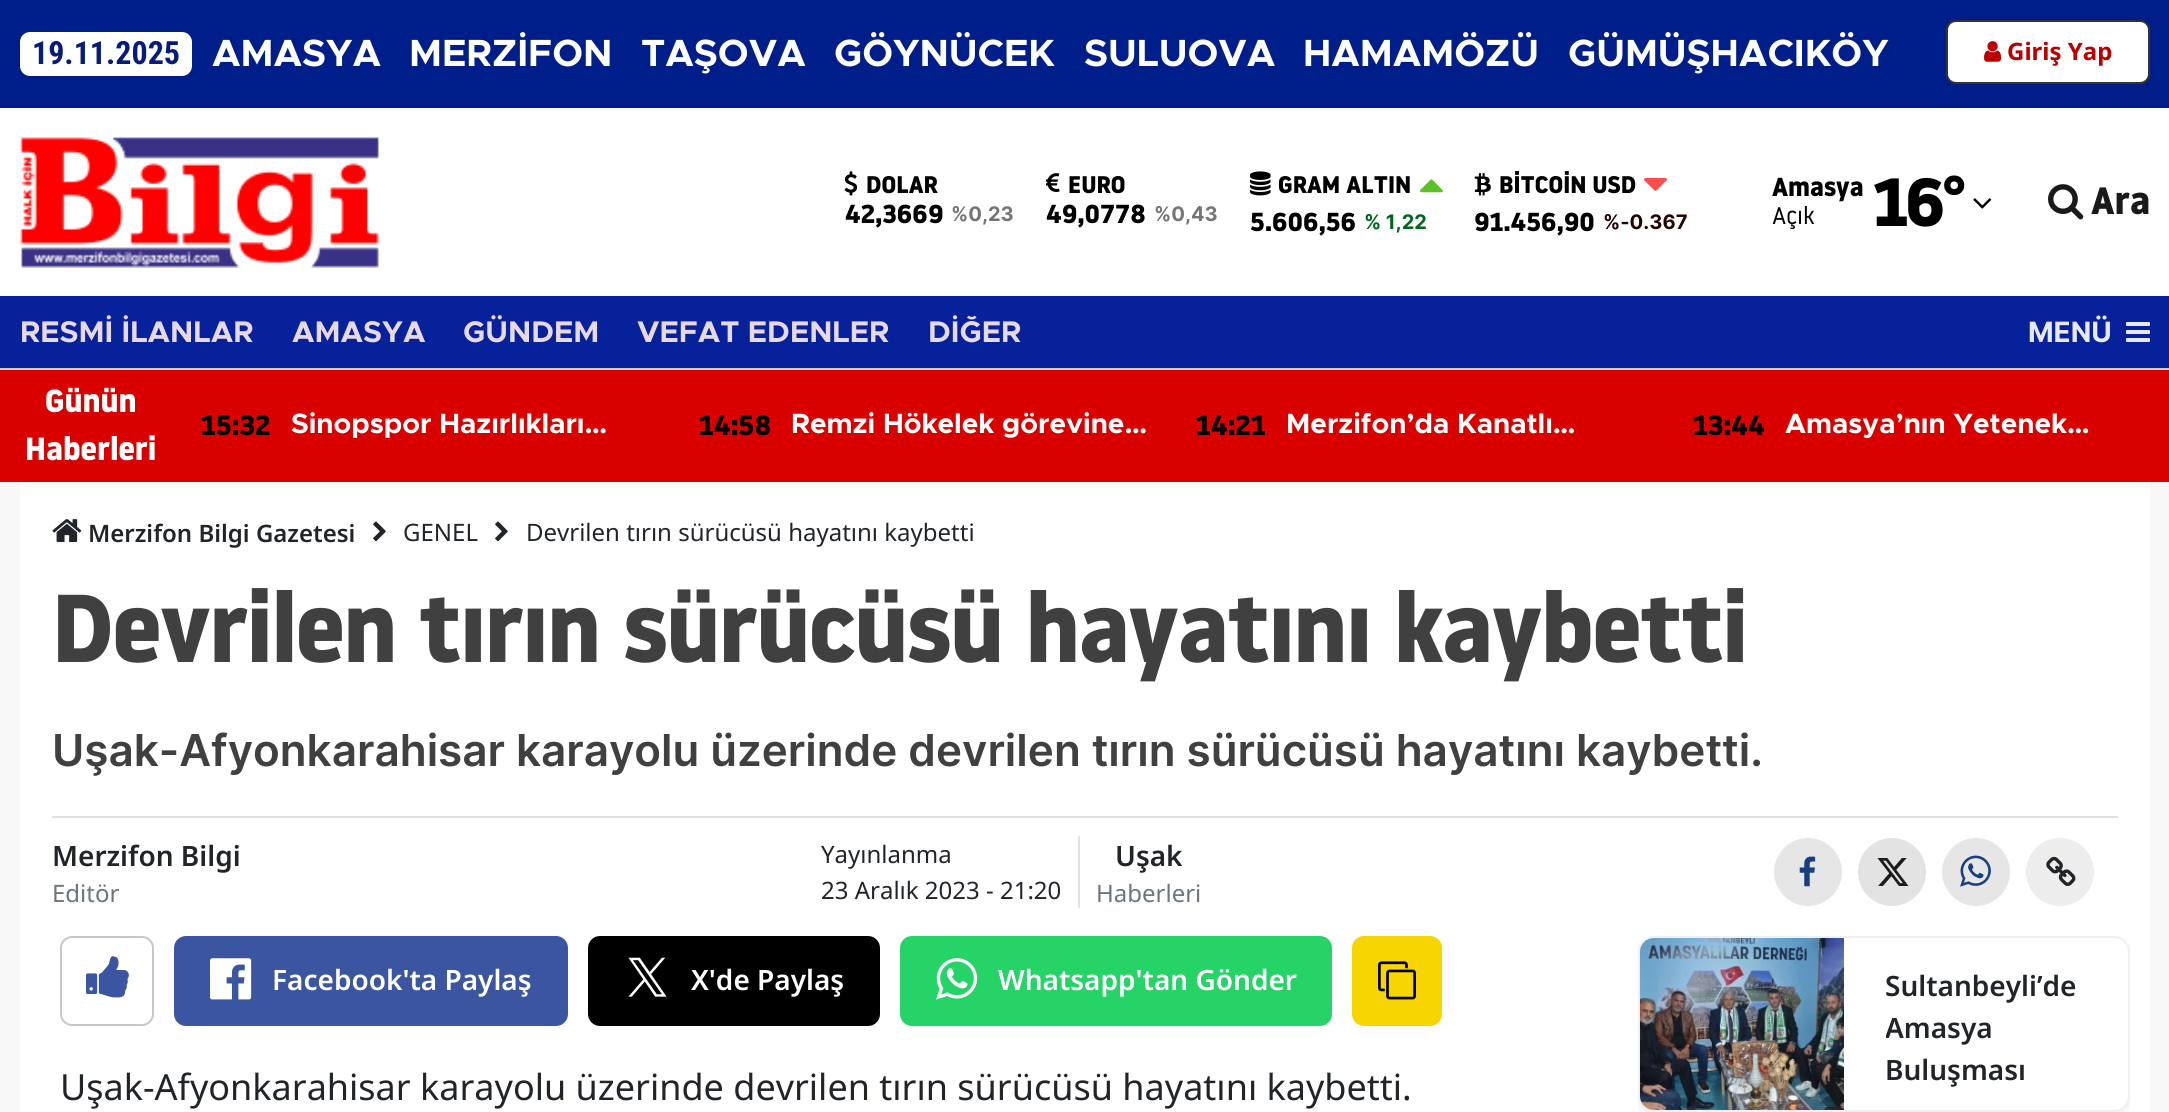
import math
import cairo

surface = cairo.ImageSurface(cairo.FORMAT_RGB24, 2169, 1112)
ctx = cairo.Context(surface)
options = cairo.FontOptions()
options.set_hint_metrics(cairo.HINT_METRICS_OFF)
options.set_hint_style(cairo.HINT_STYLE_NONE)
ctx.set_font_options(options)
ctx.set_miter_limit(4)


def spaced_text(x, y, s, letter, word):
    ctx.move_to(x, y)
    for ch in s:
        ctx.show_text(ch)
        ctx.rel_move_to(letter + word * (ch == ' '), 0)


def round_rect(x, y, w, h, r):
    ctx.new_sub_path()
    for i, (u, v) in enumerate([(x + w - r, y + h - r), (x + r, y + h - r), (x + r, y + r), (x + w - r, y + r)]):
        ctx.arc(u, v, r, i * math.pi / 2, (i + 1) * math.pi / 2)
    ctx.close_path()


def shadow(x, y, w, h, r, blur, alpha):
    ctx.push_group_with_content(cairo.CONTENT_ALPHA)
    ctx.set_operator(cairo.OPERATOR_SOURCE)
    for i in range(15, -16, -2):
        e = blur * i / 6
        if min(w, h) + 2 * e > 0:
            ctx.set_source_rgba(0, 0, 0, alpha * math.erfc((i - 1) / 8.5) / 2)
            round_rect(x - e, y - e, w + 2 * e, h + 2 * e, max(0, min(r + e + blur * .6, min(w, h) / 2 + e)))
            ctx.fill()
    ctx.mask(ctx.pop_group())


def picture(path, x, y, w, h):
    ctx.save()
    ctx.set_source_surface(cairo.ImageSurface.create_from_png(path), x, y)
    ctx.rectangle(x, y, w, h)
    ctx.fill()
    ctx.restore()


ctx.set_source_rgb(0, 0.118, 0.541)
ctx.paint()
ctx.set_source_rgb(1, 1, 1)
round_rect(20, 32, 172, 44, 10)
ctx.fill()
ctx.select_font_face("Roboto Condensed", cairo.FONT_SLANT_NORMAL, cairo.FONT_WEIGHT_BOLD)
ctx.set_font_size(32)
ctx.set_source_rgb(0.027, 0.11, 0.478)
ctx.move_to(32, 64)
ctx.show_text("19.11.2025")
ctx.select_font_face("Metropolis", cairo.FONT_SLANT_NORMAL, cairo.FONT_WEIGHT_BOLD)
ctx.set_font_size(38)
ctx.set_source_rgb(1, 1, 1)
ctx.move_to(212, 66)
ctx.show_text("AMASYA")
ctx.move_to(409, 66)
ctx.show_text("MERZİFON")
ctx.move_to(641, 66)
ctx.show_text("TAŞOVA")
ctx.move_to(834, 66)
ctx.show_text("GÖYNÜCEK")
ctx.move_to(1084, 66)
ctx.show_text("SULUOVA")
ctx.move_to(1303, 66)
ctx.show_text("HAMAMÖZÜ")
ctx.move_to(1568, 66)
ctx.show_text("GÜMÜŞHACIKÖY")
round_rect(1947, 21, 202, 62, 9)
ctx.fill_preserve()
ctx.set_source_rgb(0.2, 0.2, 0.2)
ctx.stroke()
picture("img1.png", 1984, 41, 18, 21)
ctx.select_font_face("Noto Sans", cairo.FONT_SLANT_NORMAL, cairo.FONT_WEIGHT_BOLD)
ctx.set_font_size(24)
ctx.set_source_rgb(0.733, 0, 0)
ctx.move_to(2007, 60)
ctx.show_text("Giriş Yap")
ctx.set_source_rgb(1, 1, 1)
ctx.rectangle(0, 108, 2169, 188)
ctx.fill()
picture("img2.png", 20, 136, 359, 132)
picture("img3.png", 844, 171, 14, 25)
ctx.select_font_face("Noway", cairo.FONT_SLANT_NORMAL, cairo.FONT_WEIGHT_BOLD)
ctx.set_source_rgb(0, 0, 0)
ctx.move_to(866, 193)
ctx.show_text("DOLAR")
ctx.set_font_size(26)
ctx.move_to(845, 223)
ctx.show_text("42,3669")
ctx.select_font_face("Inter", cairo.FONT_SLANT_NORMAL, cairo.FONT_WEIGHT_BOLD)
ctx.set_font_size(20)
ctx.set_source_rgb(0.459, 0.459, 0.459)
ctx.move_to(951, 221)
ctx.show_text("%0,23")
picture("img4.png", 1046, 173, 14, 19)
ctx.select_font_face("Noway", cairo.FONT_SLANT_NORMAL, cairo.FONT_WEIGHT_BOLD)
ctx.set_font_size(24)
ctx.set_source_rgb(0, 0, 0)
ctx.move_to(1068, 193)
ctx.show_text("EURO")
ctx.set_font_size(26)
ctx.move_to(1046, 223)
ctx.show_text("49,0778")
ctx.select_font_face("Inter", cairo.FONT_SLANT_NORMAL, cairo.FONT_WEIGHT_BOLD)
ctx.set_font_size(20)
ctx.set_source_rgb(0.459, 0.459, 0.459)
ctx.move_to(1154, 221)
ctx.show_text("%0,43")
picture("img5.png", 1250, 171, 21, 25)
ctx.select_font_face("Noway", cairo.FONT_SLANT_NORMAL, cairo.FONT_WEIGHT_BOLD)
ctx.set_font_size(24)
ctx.set_source_rgb(0, 0, 0)
ctx.move_to(1278, 193)
ctx.show_text("GRAM ALTIN")
picture("img6.png", 1420, 179, 23, 14)
ctx.set_font_size(26)
ctx.move_to(1250, 231)
ctx.show_text("5.606,56")
ctx.select_font_face("Inter", cairo.FONT_SLANT_NORMAL, cairo.FONT_WEIGHT_BOLD)
ctx.set_font_size(20)
ctx.set_source_rgb(0, 0.4, 0.114)
ctx.move_to(1364, 229)
ctx.show_text("% 1,22")
picture("img7.png", 1474, 173, 17, 23)
ctx.select_font_face("Noway", cairo.FONT_SLANT_NORMAL, cairo.FONT_WEIGHT_BOLD)
ctx.set_font_size(24)
ctx.set_source_rgb(0, 0, 0)
ctx.move_to(1499, 193)
ctx.show_text("BİTCOİN USD")
picture("img8.png", 1644, 178, 23, 13)
ctx.set_font_size(26)
ctx.move_to(1474, 231)
ctx.show_text("91.456,90")
ctx.select_font_face("Inter", cairo.FONT_SLANT_NORMAL, cairo.FONT_WEIGHT_BOLD)
ctx.set_font_size(20)
ctx.set_source_rgb(0.141, 0.016, 0.016)
ctx.move_to(1603, 229)
ctx.show_text("%-0.367")
ctx.select_font_face("Noway", cairo.FONT_SLANT_NORMAL, cairo.FONT_WEIGHT_BOLD)
ctx.set_font_size(26)
ctx.set_source_rgb(0, 0, 0)
ctx.move_to(1772, 196)
ctx.show_text("Amasya")
ctx.select_font_face("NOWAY")
ctx.set_font_size(24)
ctx.move_to(1772, 224)
ctx.show_text("Açık")
ctx.select_font_face("Noway", cairo.FONT_SLANT_NORMAL, cairo.FONT_WEIGHT_BOLD)
ctx.set_font_size(68)
spaced_text(1873, 226, "16°", -4, 0)
picture("img9.png", 1973, 198, 19, 11)
picture("img10.png", 2048, 184, 36, 36)
ctx.set_font_size(38)
ctx.set_source_rgb(0.102, 0.102, 0.102)
ctx.move_to(2091, 214)
ctx.show_text("Ara")
ctx.set_source_rgb(0.024, 0.129, 0.6)
ctx.rectangle(0, 296, 2169, 72)
ctx.fill()
ctx.select_font_face("Metropolis", cairo.FONT_SLANT_NORMAL, cairo.FONT_WEIGHT_BOLD)
ctx.set_font_size(30)
ctx.set_source_rgb(0.902, 0.851, 0.898)
ctx.move_to(20, 342)
ctx.show_text("RESMİ İLANLAR")
ctx.move_to(292, 342)
ctx.show_text("AMASYA")
ctx.move_to(463, 342)
ctx.show_text("GÜNDEM")
ctx.move_to(637, 342)
ctx.show_text("VEFAT EDENLER")
ctx.move_to(928, 342)
ctx.show_text("DİĞER")
ctx.select_font_face("Inter", cairo.FONT_SLANT_NORMAL, cairo.FONT_WEIGHT_BOLD)
ctx.set_font_size(28)
ctx.set_source_rgb(0.902, 0.91, 0.961)
ctx.move_to(2028, 342)
ctx.show_text("MENÜ")
picture("img11.png", 2126, 322, 24, 20)
ctx.set_source_rgb(0.851, 0, 0)
ctx.rectangle(0, 370, 2169, 112)
ctx.fill()
ctx.set_source_rgb(0.808, 0.808, 0.808)
ctx.rectangle(0, 368, 2169, 2)
ctx.fill()
ctx.select_font_face("Noway", cairo.FONT_SLANT_NORMAL, cairo.FONT_WEIGHT_BOLD)
ctx.set_font_size(32)
ctx.set_source_rgb(1, 1, 1)
ctx.move_to(45, 412)
ctx.show_text("Günün")
ctx.move_to(25, 460)
ctx.show_text("Haberleri")
ctx.set_font_size(28)
ctx.set_source_rgb(0, 0, 0)
ctx.move_to(201, 435)
ctx.show_text("15:32")
ctx.select_font_face("Metropolis", cairo.FONT_SLANT_NORMAL, cairo.FONT_WEIGHT_BOLD)
ctx.set_source_rgb(1, 1, 1)
ctx.move_to(291, 433)
ctx.show_text("Sinopspor Hazırlıkları…")
ctx.select_font_face("Noway", cairo.FONT_SLANT_NORMAL, cairo.FONT_WEIGHT_BOLD)
ctx.set_source_rgb(0, 0, 0)
ctx.move_to(699, 435)
ctx.show_text("14:58")
ctx.select_font_face("Metropolis", cairo.FONT_SLANT_NORMAL, cairo.FONT_WEIGHT_BOLD)
ctx.set_source_rgb(1, 1, 1)
ctx.move_to(791, 433)
ctx.show_text("Remzi Hökelek görevine…")
ctx.select_font_face("Noway", cairo.FONT_SLANT_NORMAL, cairo.FONT_WEIGHT_BOLD)
ctx.set_source_rgb(0, 0, 0)
ctx.move_to(1196, 435)
ctx.show_text("14:21")
ctx.select_font_face("Metropolis", cairo.FONT_SLANT_NORMAL, cairo.FONT_WEIGHT_BOLD)
ctx.set_source_rgb(1, 1, 1)
ctx.move_to(1286, 433)
ctx.show_text("Merzifon’da Kanatlı…")
ctx.select_font_face("Noway", cairo.FONT_SLANT_NORMAL, cairo.FONT_WEIGHT_BOLD)
ctx.set_source_rgb(0, 0, 0)
ctx.move_to(1693, 435)
ctx.show_text("13:44")
ctx.select_font_face("Metropolis", cairo.FONT_SLANT_NORMAL, cairo.FONT_WEIGHT_BOLD)
ctx.set_source_rgb(1, 1, 1)
ctx.move_to(1785, 433)
ctx.show_text("Amasya’nın Yetenek…")
ctx.set_source_rgb(0.969, 0.969, 0.969)
ctx.rectangle(0, 482, 2169, 630)
ctx.fill()
ctx.set_source_rgb(1, 1, 1)
ctx.rectangle(20, 482, 2130, 630)
ctx.fill()
picture("img12.png", 52, 519, 30, 23)
ctx.select_font_face("Noto Sans SemiBold")
ctx.set_font_size(24)
ctx.set_source_rgb(0.129, 0.145, 0.161)
ctx.move_to(88, 542)
ctx.show_text("Merzifon Bilgi Gazetesi")
picture("img13.png", 373, 521, 13, 21)
ctx.select_font_face("Noto Sans")
ctx.move_to(403, 541)
ctx.show_text("GENEL")
picture("img13.png", 495, 521, 13, 21)
ctx.move_to(526, 541)
ctx.show_text("Devrilen tırın sürücüsü hayatını kaybetti")
ctx.select_font_face("Noway", cairo.FONT_SLANT_NORMAL, cairo.FONT_WEIGHT_BOLD)
ctx.set_font_size(96)
ctx.set_source_rgb(0.251, 0.251, 0.251)
spaced_text(52, 662, "Devrilen tırın sürücüsü hayatını kaybetti", -1.3, 0)
ctx.select_font_face("Inter SemiBold")
ctx.set_font_size(44)
ctx.move_to(52, 766)
ctx.show_text("Uşak-Afyonkarahisar karayolu üzerinde devrilen tırın sürücüsü hayatını kaybetti.")
ctx.set_source_rgb(0.871, 0.886, 0.902)
ctx.rectangle(52, 816, 2066, 2)
ctx.fill()
ctx.select_font_face("Noto Sans SemiBold")
ctx.set_font_size(28)
ctx.set_source_rgb(0.129, 0.145, 0.161)
ctx.move_to(52, 866)
ctx.show_text("Merzifon Bilgi")
ctx.select_font_face("Noto Sans")
ctx.set_font_size(24)
ctx.set_source_rgb(0.424, 0.459, 0.49)
ctx.move_to(52, 902)
ctx.show_text("Editör")
ctx.set_source_rgb(0.871, 0.886, 0.902)
ctx.rectangle(1078, 836, 2, 72)
ctx.fill()
ctx.set_source_rgb(0.129, 0.145, 0.161)
ctx.move_to(821, 863)
ctx.show_text("Yayınlanma")
ctx.move_to(821, 899)
ctx.show_text("23 Aralık 2023 - 21:20")
ctx.select_font_face("Noto Sans SemiBold")
ctx.set_font_size(28)
ctx.move_to(1115, 866)
ctx.show_text("Uşak")
ctx.select_font_face("Noto Sans")
ctx.set_font_size(24)
ctx.set_source_rgb(0.424, 0.459, 0.49)
ctx.move_to(1096, 902)
ctx.show_text("Haberleri")
ctx.set_source_rgb(0.902, 0.902, 0.902)
ctx.new_path()
ctx.arc(1808, 872, 34, 0, 2 * math.pi)
ctx.fill()
picture("img14.png", 1799, 856, 17, 31)
ctx.set_source_rgb(0.89, 0.89, 0.89)
ctx.arc(1892, 872, 34, 0, 2 * math.pi)
ctx.fill()
picture("img15.png", 1877, 858, 32, 28)
ctx.set_source_rgb(0.902, 0.902, 0.902)
ctx.arc(1976, 872, 34, 0, 2 * math.pi)
ctx.fill()
picture("img16.png", 1960, 855, 31, 32)
ctx.set_source_rgb(0.929, 0.929, 0.929)
ctx.arc(2060, 872, 34, 0, 2 * math.pi)
ctx.fill()
picture("img17.png", 2046, 856, 30, 30)
round_rect(61, 937, 92, 88, 11)
ctx.set_source_rgb(0.78, 0.78, 0.78)
ctx.stroke()
picture("img18.png", 86, 956, 43, 42)
ctx.set_source_rgb(0.231, 0.333, 0.627)
round_rect(174, 936, 394, 90, 12)
ctx.fill()
picture("img19.png", 210, 958, 42, 42)
ctx.select_font_face("Noto Sans SemiBold")
ctx.set_font_size(28)
ctx.set_source_rgb(1, 1, 1)
ctx.move_to(272, 990)
ctx.show_text("Facebook'ta Paylaş")
ctx.set_source_rgb(0, 0, 0)
round_rect(588, 936, 292, 90, 12)
ctx.fill()
picture("img20.png", 628, 957, 39, 40)
ctx.set_source_rgb(1, 1, 1)
ctx.move_to(691, 990)
ctx.show_text("X'de Paylaş")
ctx.set_source_rgb(0.145, 0.827, 0.4)
round_rect(900, 936, 432, 90, 12)
ctx.fill()
picture("img21.png", 936, 958, 42, 42)
ctx.set_source_rgb(1, 1, 1)
ctx.move_to(998, 990)
ctx.show_text("Whatsapp'tan Gönder")
ctx.set_source_rgb(0.965, 0.835, 0)
round_rect(1352, 936, 90, 90, 12)
ctx.fill()
picture("img22.png", 1378, 961, 38, 39)
ctx.select_font_face("Noto Sans")
ctx.set_font_size(36)
ctx.set_source_rgb(0.129, 0.145, 0.161)
ctx.move_to(60, 1100)
ctx.show_text("Uşak-Afyonkarahisar karayolu üzerinde devrilen tırın sürücüsü hayatını kaybetti.")
ctx.save()
ctx.rectangle(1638, 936, 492, 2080)
ctx.clip()
ctx.set_source_rgb(0, 0, 0)
shadow(1638, 940, 492, 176, 16, 4, 0.07)
ctx.restore()
ctx.set_source_rgb(1, 1, 1)
round_rect(1639, 937, 490, 174, 15)
ctx.fill_preserve()
ctx.set_source_rgb(0.941, 0.941, 0.941)
ctx.stroke()
picture("img23.png", 1640, 938, 204, 172)
ctx.select_font_face("Noto Sans SemiBold")
ctx.set_font_size(28)
ctx.set_source_rgb(0.129, 0.145, 0.161)
ctx.move_to(1885, 996)
ctx.show_text("Sultanbeyli’de")
ctx.save()
ctx.rectangle(1886, 964, 222, 126)
ctx.clip()
ctx.move_to(1885, 1038)
ctx.show_text("Amasya")
ctx.restore()
ctx.move_to(1885, 1080)
ctx.show_text("Buluşması")
surface.write_to_png("page.png")
